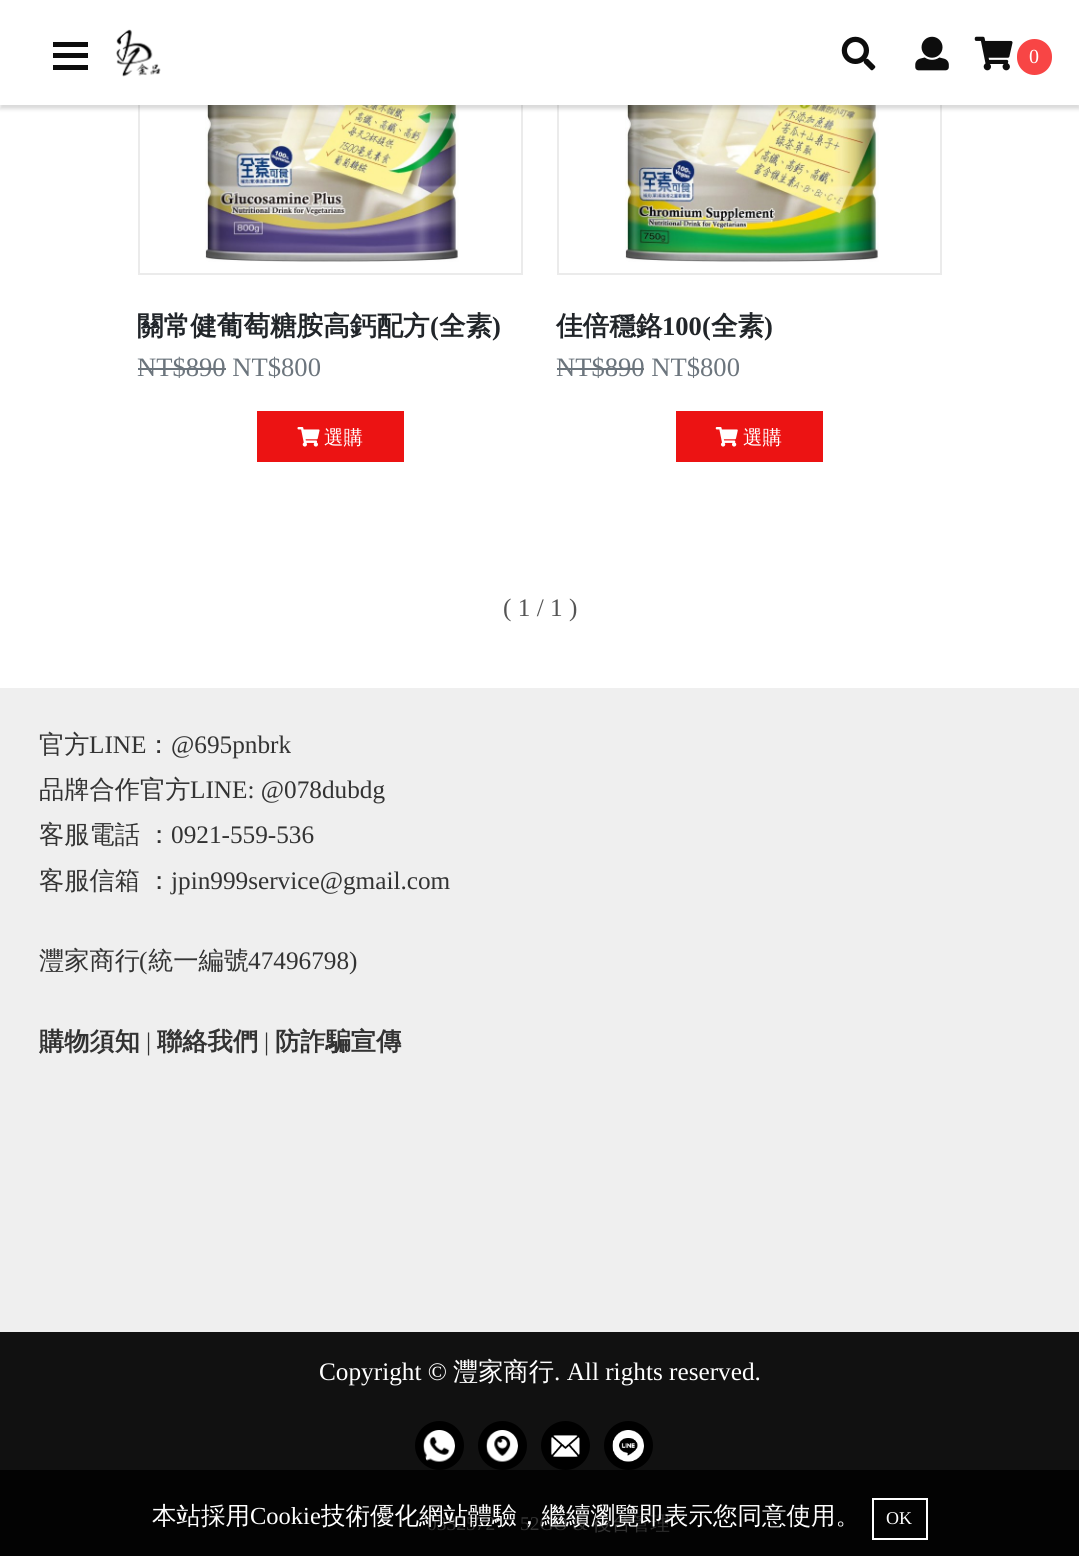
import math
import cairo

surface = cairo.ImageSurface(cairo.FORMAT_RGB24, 1079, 1556)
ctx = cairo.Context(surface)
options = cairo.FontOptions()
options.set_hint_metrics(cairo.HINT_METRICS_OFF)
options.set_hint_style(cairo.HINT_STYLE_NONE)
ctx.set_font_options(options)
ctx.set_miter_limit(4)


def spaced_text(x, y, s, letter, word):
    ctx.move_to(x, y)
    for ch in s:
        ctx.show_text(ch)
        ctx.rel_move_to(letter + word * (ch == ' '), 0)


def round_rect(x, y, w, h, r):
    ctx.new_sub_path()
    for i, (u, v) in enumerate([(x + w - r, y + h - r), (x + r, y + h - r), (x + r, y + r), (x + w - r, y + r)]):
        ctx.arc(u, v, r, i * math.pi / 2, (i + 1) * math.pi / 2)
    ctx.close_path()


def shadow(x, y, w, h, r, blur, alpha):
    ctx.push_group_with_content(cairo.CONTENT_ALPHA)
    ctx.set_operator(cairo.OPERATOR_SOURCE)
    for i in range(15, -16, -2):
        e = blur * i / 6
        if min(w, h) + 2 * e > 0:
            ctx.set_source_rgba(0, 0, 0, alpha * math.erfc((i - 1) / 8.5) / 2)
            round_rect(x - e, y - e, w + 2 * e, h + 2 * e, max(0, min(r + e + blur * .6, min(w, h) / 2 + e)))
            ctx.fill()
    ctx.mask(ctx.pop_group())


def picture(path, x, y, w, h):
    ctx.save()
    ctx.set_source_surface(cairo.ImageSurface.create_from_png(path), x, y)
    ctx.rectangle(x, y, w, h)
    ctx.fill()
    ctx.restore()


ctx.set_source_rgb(1, 1, 1)
ctx.paint()
ctx.rectangle(139, -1, 383, 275)
ctx.set_source_rgb(0.918, 0.918, 0.918)
ctx.stroke()
picture("img5.png", 205, 105, 254, 157)
ctx.rectangle(558, -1, 383, 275)
ctx.stroke()
picture("img7.png", 625, 105, 254, 157)
ctx.set_source_rgb(0, 0, 0)
shadow(0, 4, 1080, 105, 0, 2, 0.15)
ctx.set_source_rgb(1, 1, 1)
ctx.rectangle(0, 0, 1079, 105)
ctx.fill()
ctx.set_source_rgb(0.051, 0.051, 0.051)
ctx.rectangle(53, 42, 35, 5)
ctx.fill()
ctx.rectangle(53, 65, 35, 5)
ctx.fill()
ctx.rectangle(53, 53, 35, 5)
ctx.fill()
picture("img1.png", 116, 29, 45, 48)
picture("img2.png", 841, 36, 35, 35)
picture("img3.png", 915, 36, 34, 35)
picture("img4.png", 974, 36, 39, 35)
ctx.set_source_rgb(0.969, 0.271, 0.271)
round_rect(1017, 39, 35, 36, 17.5)
ctx.fill()
ctx.select_font_face("Liberation Serif")
ctx.set_font_size(20)
ctx.set_source_rgb(1, 1, 1)
ctx.move_to(1029, 63)
ctx.show_text("0")
ctx.select_font_face("WenQuanYi Zen Hei", cairo.FONT_SLANT_NORMAL, cairo.FONT_WEIGHT_BOLD)
ctx.set_font_size(26.6)
ctx.set_source_rgb(0.129, 0.145, 0.161)
ctx.move_to(137, 335)
ctx.show_text("關常健葡萄糖胺高鈣配方")
ctx.select_font_face("Liberation Serif", cairo.FONT_SLANT_NORMAL, cairo.FONT_WEIGHT_BOLD)
ctx.move_to(430, 335)
ctx.show_text("(")
ctx.select_font_face("WenQuanYi Zen Hei", cairo.FONT_SLANT_NORMAL, cairo.FONT_WEIGHT_BOLD)
ctx.move_to(439, 335)
ctx.show_text("全素")
ctx.select_font_face("Liberation Serif", cairo.FONT_SLANT_NORMAL, cairo.FONT_WEIGHT_BOLD)
ctx.move_to(492, 335)
ctx.show_text(")")
ctx.select_font_face("Liberation Serif")
ctx.set_source_rgb(0.424, 0.459, 0.49)
ctx.move_to(137, 376)
ctx.show_text("NT$890 NT$800")
ctx.rectangle(138, 368, 88, 2)
ctx.fill()
ctx.set_source_rgb(0.925, 0.075, 0.075)
ctx.rectangle(257, 411, 147, 51)
ctx.fill()
picture("img6.png", 297, 427, 23, 20)
ctx.select_font_face("WenQuanYi Zen Hei Medium")
ctx.set_font_size(19.5)
ctx.set_source_rgb(1, 1, 1)
ctx.move_to(324, 444)
ctx.show_text("選購")
ctx.select_font_face("WenQuanYi Zen Hei", cairo.FONT_SLANT_NORMAL, cairo.FONT_WEIGHT_BOLD)
ctx.set_font_size(26.6)
ctx.set_source_rgb(0.129, 0.145, 0.161)
ctx.move_to(556, 335)
ctx.show_text("佳倍穩鉻")
ctx.select_font_face("Liberation Serif", cairo.FONT_SLANT_NORMAL, cairo.FONT_WEIGHT_BOLD)
ctx.move_to(662, 335)
ctx.show_text("100(")
ctx.select_font_face("WenQuanYi Zen Hei", cairo.FONT_SLANT_NORMAL, cairo.FONT_WEIGHT_BOLD)
ctx.move_to(711, 335)
ctx.show_text("全素")
ctx.select_font_face("Liberation Serif", cairo.FONT_SLANT_NORMAL, cairo.FONT_WEIGHT_BOLD)
ctx.move_to(764, 335)
ctx.show_text(")")
ctx.select_font_face("Liberation Serif")
ctx.set_source_rgb(0.424, 0.459, 0.49)
ctx.move_to(556, 376)
ctx.show_text("NT$890 NT$800")
ctx.rectangle(557, 368, 87, 2)
ctx.fill()
ctx.set_source_rgb(0.925, 0.075, 0.075)
ctx.rectangle(676, 411, 147, 51)
ctx.fill()
picture("img8.png", 715, 427, 23, 20)
ctx.select_font_face("WenQuanYi Zen Hei Medium")
ctx.set_font_size(19.5)
ctx.set_source_rgb(1, 1, 1)
ctx.move_to(743, 444)
ctx.show_text("選購")
ctx.select_font_face("Liberation Serif")
ctx.set_font_size(25.25)
ctx.set_source_rgb(0.333, 0.333, 0.333)
ctx.move_to(503, 616)
ctx.show_text("( 1 / 1 )")
ctx.set_source_rgb(0.937, 0.937, 0.937)
ctx.rectangle(0, 688, 1079, 644)
ctx.fill()
ctx.select_font_face("WenQuanYi Zen Hei Medium")
ctx.set_source_rgb(0.2, 0.2, 0.2)
ctx.move_to(39, 753)
ctx.show_text("官方")
ctx.select_font_face("Liberation Serif")
ctx.move_to(89, 753)
ctx.show_text("LINE")
ctx.select_font_face("WenQuanYi Zen Hei Medium")
ctx.move_to(146, 753)
ctx.show_text("：")
ctx.select_font_face("Liberation Serif")
ctx.move_to(171, 753)
ctx.show_text("@695pnbrk")
ctx.select_font_face("WenQuanYi Zen Hei Medium")
ctx.move_to(39, 798)
ctx.show_text("品牌合作官方")
ctx.select_font_face("Liberation Serif")
ctx.move_to(190, 798)
ctx.show_text("LINE: @078dubdg")
ctx.select_font_face("WenQuanYi Zen Hei Medium")
spaced_text(39, 843, "客服電話 ：", 0, -1)
ctx.select_font_face("Liberation Serif")
ctx.move_to(171, 843)
ctx.show_text("0921-559-536")
ctx.select_font_face("WenQuanYi Zen Hei Medium")
spaced_text(39, 889, "客服信箱 ：", 0, -1)
ctx.select_font_face("Liberation Serif")
ctx.move_to(171, 889)
ctx.show_text("jpin999service@gmail.com")
ctx.select_font_face("WenQuanYi Zen Hei Medium")
ctx.move_to(39, 969)
ctx.show_text("灃家商行")
ctx.select_font_face("Liberation Serif")
ctx.move_to(139, 969)
ctx.show_text("(")
ctx.select_font_face("WenQuanYi Zen Hei Medium")
ctx.move_to(148, 969)
ctx.show_text("統一編號")
ctx.select_font_face("Liberation Serif")
ctx.move_to(248, 969)
ctx.show_text("47496798)")
ctx.select_font_face("WenQuanYi Zen Hei", cairo.FONT_SLANT_NORMAL, cairo.FONT_WEIGHT_BOLD)
ctx.move_to(39, 1050)
ctx.show_text("購物須知")
ctx.select_font_face("Liberation Serif")
ctx.move_to(146, 1050)
ctx.show_text("|")
ctx.select_font_face("WenQuanYi Zen Hei", cairo.FONT_SLANT_NORMAL, cairo.FONT_WEIGHT_BOLD)
ctx.move_to(157, 1050)
ctx.show_text("聯絡我們")
ctx.select_font_face("Liberation Serif")
ctx.move_to(264, 1050)
ctx.show_text("|")
ctx.select_font_face("WenQuanYi Zen Hei", cairo.FONT_SLANT_NORMAL, cairo.FONT_WEIGHT_BOLD)
ctx.move_to(275, 1050)
ctx.show_text("防詐騙宣傳")
ctx.set_source_rgb(0.067, 0.067, 0.067)
ctx.rectangle(0, 1332, 1079, 138)
ctx.fill()
ctx.set_source_rgb(0.012, 0.012, 0.012)
ctx.rectangle(0, 1470, 1079, 86)
ctx.fill()
ctx.select_font_face("Liberation Serif")
ctx.set_source_rgb(1, 1, 1)
ctx.move_to(319, 1380)
ctx.show_text("Copyright ©")
ctx.select_font_face("WenQuanYi Zen Hei Medium")
ctx.move_to(453, 1380)
ctx.show_text("灃家商行")
ctx.select_font_face("Liberation Serif")
ctx.move_to(554, 1380)
ctx.show_text(". All rights reserved.")
ctx.set_source_rgb(0, 0, 0)
ctx.new_path()
ctx.arc(439.5, 1445.5, 24.5, 0, 2 * math.pi)
ctx.fill()
picture("img9.png", 423, 1430, 32, 32)
ctx.arc(502.5, 1445.5, 24.5, 0, 2 * math.pi)
ctx.fill()
picture("img10.png", 486, 1430, 32, 32)
ctx.arc(565.5, 1445.5, 24.5, 0, 2 * math.pi)
ctx.fill()
picture("img11.png", 551, 1435, 29, 22)
ctx.arc(628.5, 1445.5, 24.5, 0, 2 * math.pi)
ctx.fill()
picture("img12.png", 612, 1430, 32, 32)
ctx.set_font_size(19.5)
ctx.set_source_rgb(0.2, 0.2, 0.2)
ctx.move_to(427, 1530)
ctx.show_text("0332572")
ctx.move_to(520, 1530)
ctx.show_text("52GO &")
ctx.select_font_face("WenQuanYi Zen Hei Medium")
ctx.move_to(592, 1530)
ctx.show_text("後台管理")
ctx.set_font_size(24.5)
ctx.set_source_rgb(1, 1, 1)
ctx.move_to(152, 1524)
ctx.show_text("本站採用")
ctx.select_font_face("Liberation Serif")
ctx.move_to(250, 1524)
ctx.show_text("Cookie")
ctx.select_font_face("WenQuanYi Zen Hei Medium")
ctx.move_to(321, 1524)
ctx.show_text("技術優化網站體驗，繼續瀏覽即表示您同意使用。")
ctx.rectangle(873, 1499, 54, 40)
ctx.stroke()
ctx.select_font_face("Liberation Serif")
ctx.set_font_size(18)
ctx.move_to(886, 1524)
ctx.show_text("OK")
surface.write_to_png("page.png")
